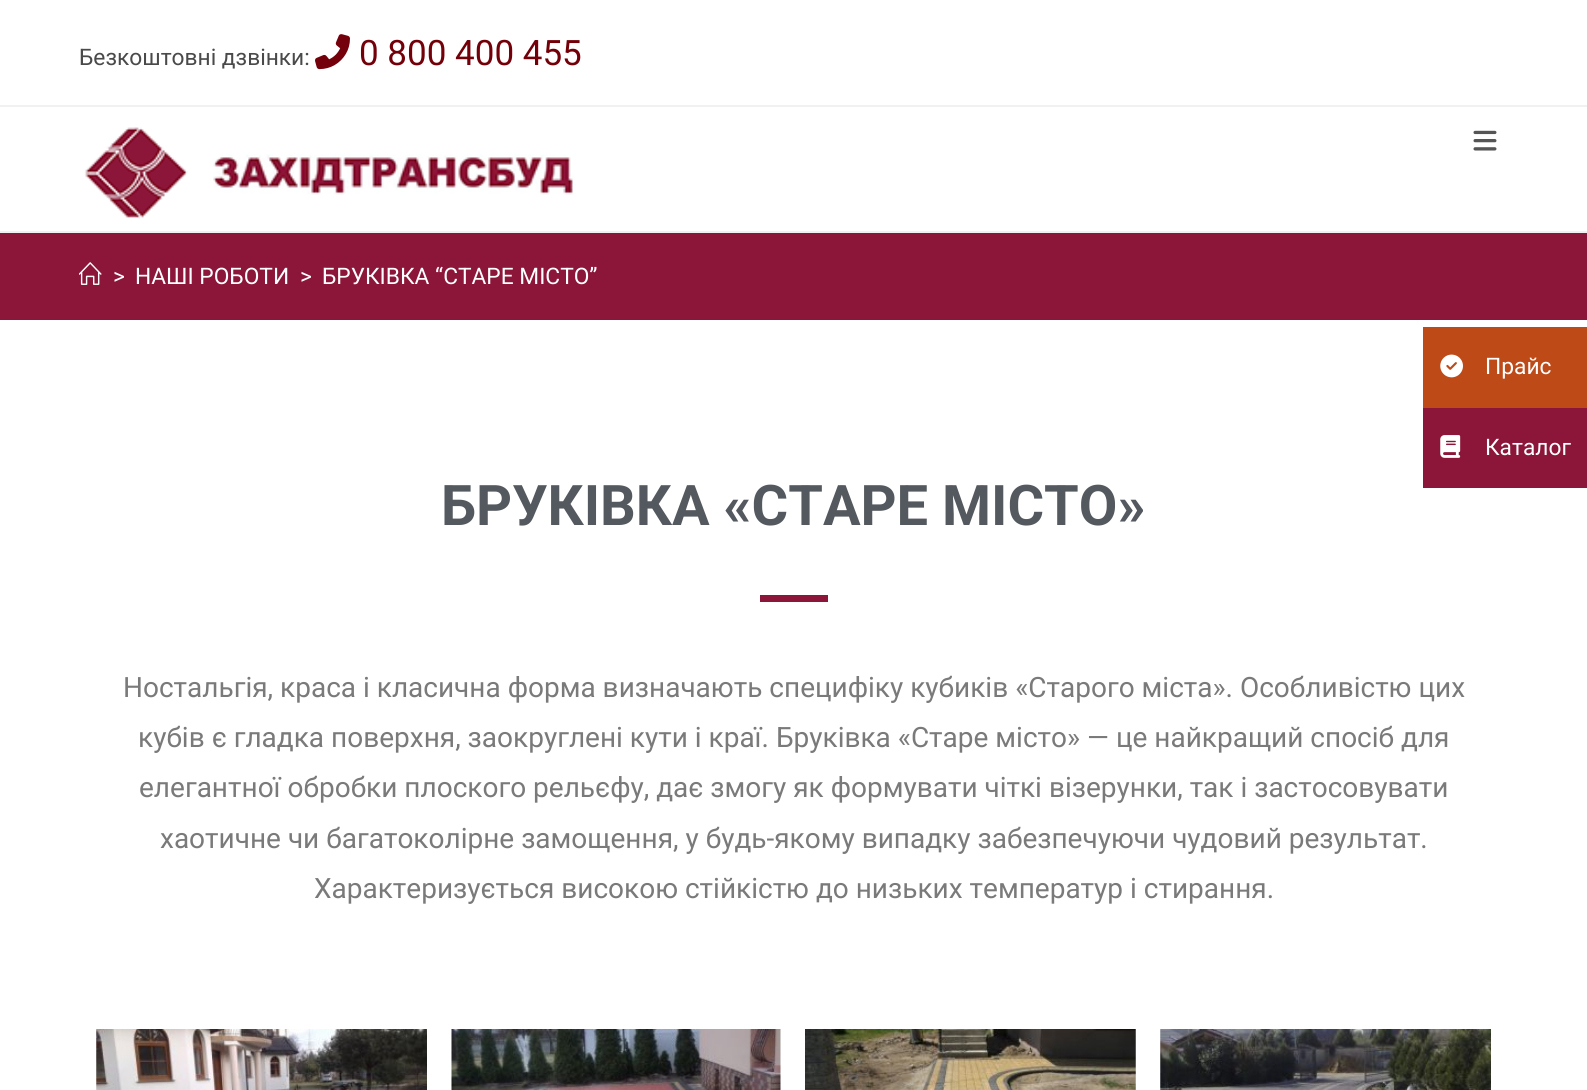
import math
import cairo

surface = cairo.ImageSurface(cairo.FORMAT_RGB24, 1587, 1090)
ctx = cairo.Context(surface)
options = cairo.FontOptions()
options.set_hint_metrics(cairo.HINT_METRICS_OFF)
options.set_hint_style(cairo.HINT_STYLE_NONE)
ctx.set_font_options(options)
ctx.set_miter_limit(4)


def picture(path, x, y, w, h):
    ctx.save()
    ctx.set_source_surface(cairo.ImageSurface.create_from_png(path), x, y)
    ctx.rectangle(x, y, w, h)
    ctx.fill()
    ctx.restore()


ctx.set_source_rgb(1, 1, 1)
ctx.paint()
ctx.set_source_rgb(0.945, 0.945, 0.945)
ctx.rectangle(0, 105, 1587, 2)
ctx.fill()
ctx.select_font_face("Roboto")
ctx.set_font_size(22.75)
ctx.set_source_rgb(0.29, 0.29, 0.29)
ctx.move_to(79, 65)
ctx.show_text("Безкоштовні дзвінки:")
picture("img1.png", 315, 34, 35, 36)
ctx.set_font_size(35)
ctx.set_source_rgb(0.451, 0, 0.039)
ctx.move_to(359, 65)
ctx.show_text("0 800 400 455")
ctx.set_source_rgb(0.945, 0.945, 0.945)
ctx.rectangle(0, 231, 1587, 2)
ctx.fill()
picture("img2.png", 84, 127, 492, 92)
picture("img3.png", 1473, 130, 24, 21)
ctx.set_source_rgb(0.549, 0.086, 0.224)
ctx.rectangle(0, 233, 1587, 87)
ctx.fill()
picture("img4.png", 79, 262, 23, 23)
ctx.set_font_size(22.75)
ctx.set_source_rgb(1, 1, 1)
ctx.move_to(113, 284)
ctx.show_text(">")
ctx.move_to(135, 284)
ctx.show_text("НАШІ РОБОТИ")
ctx.move_to(300, 284)
ctx.show_text(">")
ctx.move_to(322, 284)
ctx.show_text("БРУКІВКА “СТАРЕ МІСТО”")
ctx.select_font_face("Roboto", cairo.FONT_SLANT_NORMAL, cairo.FONT_WEIGHT_BOLD)
ctx.set_font_size(56)
ctx.set_source_rgb(0.329, 0.349, 0.373)
ctx.move_to(441, 525)
ctx.show_text("БРУКІВКА «СТАРЕ МІСТО»")
ctx.set_source_rgb(0.549, 0.086, 0.224)
ctx.rectangle(760, 595, 68, 7)
ctx.fill()
ctx.select_font_face("Roboto")
ctx.set_font_size(28)
ctx.set_source_rgb(0.478, 0.478, 0.478)
ctx.move_to(123, 697)
ctx.show_text("Ностальгія, краса і класична форма визначають специфіку кубиків «Старого міста». Особливістю цих")
ctx.move_to(138, 747)
ctx.show_text("кубів є гладка поверхня, заокруглені кути і краї. Бруківка «Старе місто» — це найкращий спосіб для")
ctx.move_to(139, 797)
ctx.show_text("елегантної обробки плоского рельєфу, дає змогу як формувати чіткі візерунки, так і застосовувати")
ctx.move_to(160, 848)
ctx.show_text("хаотичне чи багатоколірне замощення, у будь-якому випадку забезпечуючи чудовий результат.")
ctx.move_to(314, 898)
ctx.show_text("Характеризується високою стійкістю до низьких температур і стирання.")
picture("img5.png", 96, 1029, 331, 61)
picture("img6.png", 451, 1029, 330, 61)
picture("img7.png", 805, 1029, 331, 61)
picture("img8.png", 1160, 1029, 331, 61)
ctx.set_source_rgb(0.741, 0.29, 0.09)
ctx.rectangle(1423, 327, 164, 81)
ctx.fill()
picture("img9.png", 1440, 354, 23, 24)
ctx.set_font_size(22.75)
ctx.set_source_rgb(1, 1, 1)
ctx.move_to(1485, 374)
ctx.show_text("Прайс")
ctx.set_source_rgb(0.549, 0.086, 0.224)
ctx.rectangle(1423, 408, 164, 80)
ctx.fill()
picture("img10.png", 1440, 435, 21, 23)
ctx.set_source_rgb(1, 1, 1)
ctx.move_to(1485, 455)
ctx.show_text("Каталог")
surface.write_to_png("page.png")
